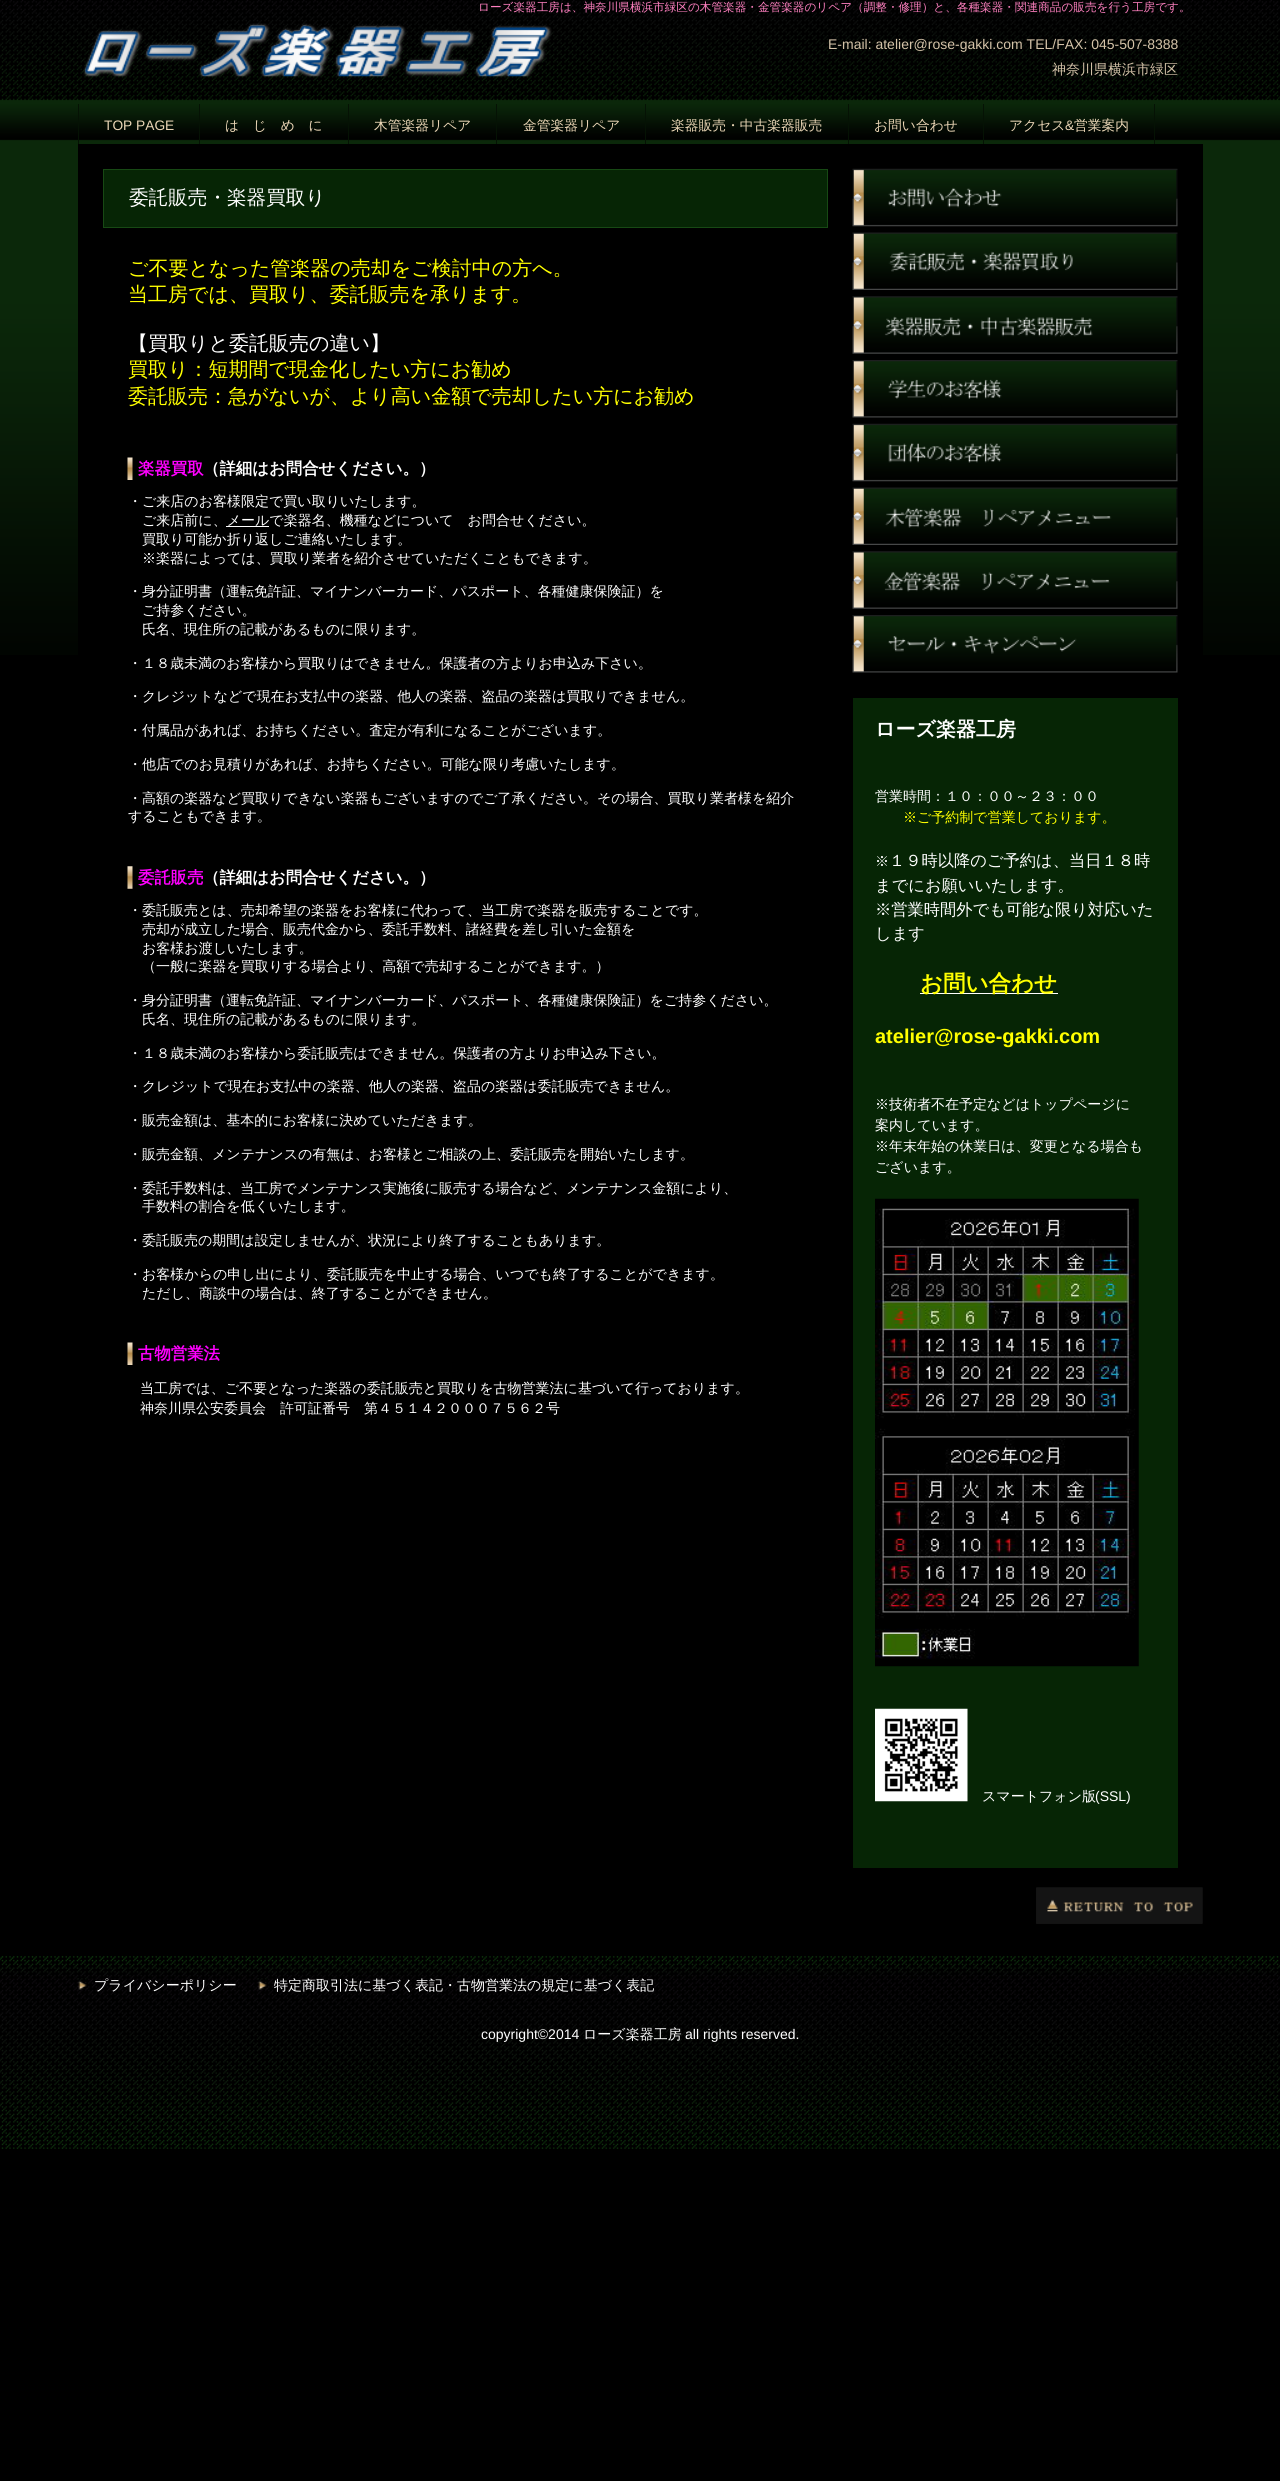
import math
import cairo

surface = cairo.ImageSurface(cairo.FORMAT_RGB24, 1280, 2481)
ctx = cairo.Context(surface)
options = cairo.FontOptions()
options.set_hint_metrics(cairo.HINT_METRICS_OFF)
options.set_hint_style(cairo.HINT_STYLE_NONE)
ctx.set_font_options(options)
ctx.set_miter_limit(4)


def picture(path, x, y, w, h):
    ctx.save()
    ctx.set_source_surface(cairo.ImageSurface.create_from_png(path), x, y)
    ctx.rectangle(x, y, w, h)
    ctx.fill()
    ctx.restore()


ctx.set_source_rgb(0, 0, 0)
ctx.paint()
picture("img1.png", 0, 0, 1280, 655)
picture("img2.png", 0, 1956, 1280, 193)
ctx.select_font_face("WenQuanYi Zen Hei Medium")
ctx.set_font_size(11.62)
ctx.set_source_rgb(1, 0.502, 0.753)
ctx.move_to(478, 11)
ctx.show_text("ローズ楽器工房は、神奈川県横浜市緑区の木管楽器・金管楽器のリペア（調整・修理）と、各種楽器・関連商品の販売を行う工房です。")
picture("img3.png", 83, 23, 469, 54)
ctx.select_font_face("Liberation Sans")
ctx.set_font_size(14)
ctx.set_source_rgb(0.835, 0.765, 0.663)
ctx.move_to(828, 49)
ctx.show_text("E-mail: atelier@rose-gakki.com TEL/FAX: 045-507-8388")
ctx.select_font_face("WenQuanYi Zen Hei Medium")
ctx.move_to(1052, 74)
ctx.show_text("神奈川県横浜市緑区")
ctx.set_source_rgb(0, 0, 0)
ctx.rectangle(78, 144, 1125, 511)
ctx.fill()
ctx.set_source_rgb(0.02, 0.071, 0.016)
ctx.rectangle(78, 104, 1, 40)
ctx.fill()
ctx.rectangle(199, 104, 1, 40)
ctx.fill()
ctx.select_font_face("Liberation Sans")
ctx.set_font_size(13.75)
ctx.set_source_rgb(0.918, 0.839, 0.714)
ctx.move_to(104, 130)
ctx.show_text("TOP PAGE")
ctx.set_source_rgb(0.02, 0.071, 0.016)
ctx.rectangle(348, 104, 1, 40)
ctx.fill()
ctx.select_font_face("WenQuanYi Zen Hei Medium")
ctx.set_source_rgb(0.918, 0.839, 0.714)
ctx.move_to(225, 130)
ctx.show_text("は　じ　め　に")
ctx.set_source_rgb(0.02, 0.071, 0.016)
ctx.rectangle(496, 104, 1, 40)
ctx.fill()
ctx.set_source_rgb(0.918, 0.839, 0.714)
ctx.move_to(374, 130)
ctx.show_text("木管楽器リペア")
ctx.set_source_rgb(0.02, 0.071, 0.016)
ctx.rectangle(645, 104, 1, 40)
ctx.fill()
ctx.set_source_rgb(0.918, 0.839, 0.714)
ctx.move_to(523, 130)
ctx.show_text("金管楽器リペア")
ctx.set_source_rgb(0.02, 0.071, 0.016)
ctx.rectangle(848, 104, 1, 40)
ctx.fill()
ctx.set_source_rgb(0.918, 0.839, 0.714)
ctx.move_to(671, 130)
ctx.show_text("楽器販売・中古楽器販売")
ctx.set_source_rgb(0.02, 0.071, 0.016)
ctx.rectangle(983, 104, 1, 40)
ctx.fill()
ctx.set_source_rgb(0.918, 0.839, 0.714)
ctx.move_to(874, 130)
ctx.show_text("お問い合わせ")
ctx.set_source_rgb(0.02, 0.071, 0.016)
ctx.rectangle(1154, 104, 1, 40)
ctx.fill()
ctx.set_source_rgb(0.918, 0.839, 0.714)
ctx.move_to(1009, 130)
ctx.show_text("アクセス")
ctx.select_font_face("Liberation Sans")
ctx.move_to(1065, 130)
ctx.show_text("&")
ctx.select_font_face("WenQuanYi Zen Hei Medium")
ctx.move_to(1074, 130)
ctx.show_text("営業案内")
ctx.set_source_rgb(0.024, 0.145, 0.02)
ctx.rectangle(103.5, 169.5, 724, 58)
ctx.fill_preserve()
ctx.set_source_rgb(0.09, 0.286, 0.082)
ctx.set_line_width(1)
ctx.stroke()
ctx.set_font_size(19.6)
ctx.set_source_rgb(1, 1, 1)
ctx.move_to(129, 204)
ctx.show_text("委託販売・楽器買取り")
ctx.set_font_size(20)
ctx.set_source_rgb(1, 1, 0)
ctx.move_to(128, 275)
ctx.show_text("ご不要となった管楽器の売却をご検討中の方へ。")
ctx.move_to(128, 301)
ctx.show_text("当工房では、買取り、委託販売を承ります。")
ctx.set_source_rgb(1, 1, 1)
ctx.move_to(128, 350)
ctx.show_text("【買取りと委託販売の違い】")
ctx.set_source_rgb(1, 1, 0)
ctx.move_to(128, 376)
ctx.show_text("買取り：短期間で現金化したい方にお勧め")
ctx.move_to(128, 403)
ctx.show_text("委託販売：急がないが、より高い金額で売却したい方にお勧め")
picture("img4.png", 127, 457, 6, 23)
ctx.select_font_face("WenQuanYi Zen Hei", cairo.FONT_SLANT_NORMAL, cairo.FONT_WEIGHT_BOLD)
ctx.set_font_size(16.4)
ctx.set_source_rgb(1, 0, 1)
ctx.move_to(138, 474)
ctx.show_text("楽器買取")
ctx.set_source_rgb(1, 1, 1)
ctx.move_to(203, 474)
ctx.show_text("（詳細はお問合せください。）")
ctx.select_font_face("WenQuanYi Zen Hei Medium")
ctx.set_font_size(14)
ctx.move_to(128, 506)
ctx.show_text("・ご来店のお客様限定で買い取りいたします。")
ctx.move_to(142, 525)
ctx.show_text("ご来店前に、メールで楽器名、機種などについて　お問合せください。")
ctx.rectangle(226, 526, 43, 1)
ctx.fill()
ctx.move_to(142, 544)
ctx.show_text("買取り可能か折り返しご連絡いたします。")
ctx.move_to(142, 563)
ctx.show_text("※楽器によっては、買取り業者を紹介させていただくこともできます。")
ctx.move_to(128, 596)
ctx.show_text("・身分証明書（運転免許証、マイナンバーカード、パスポート、各種健康保険証）を")
ctx.move_to(142, 615)
ctx.show_text("ご持参ください。")
ctx.move_to(142, 634)
ctx.show_text("氏名、現住所の記載があるものに限ります。")
ctx.move_to(128, 668)
ctx.show_text("・１８歳未満のお客様から買取りはできません。保護者の方よりお申込み下さい。")
ctx.move_to(128, 701)
ctx.show_text("・クレジットなどで現在お支払中の楽器、他人の楽器、盗品の楽器は買取りできません。")
ctx.move_to(128, 735)
ctx.show_text("・付属品があれば、お持ちください。査定が有利になることがございます。")
ctx.move_to(128, 769)
ctx.show_text("・他店でのお見積りがあれば、お持ちください。可能な限り考慮いたします。")
ctx.move_to(128, 803)
ctx.show_text("・高額の楽器など買取りできない楽器もございますのでご了承ください。その場合、買取り業者様を紹介")
ctx.move_to(128, 821)
ctx.show_text("することもできます。")
picture("img5.png", 127, 866, 6, 23)
ctx.select_font_face("WenQuanYi Zen Hei", cairo.FONT_SLANT_NORMAL, cairo.FONT_WEIGHT_BOLD)
ctx.set_font_size(16.4)
ctx.set_source_rgb(1, 0, 1)
ctx.move_to(138, 883)
ctx.show_text("委託販売")
ctx.set_source_rgb(1, 1, 1)
ctx.move_to(203, 883)
ctx.show_text("（詳細はお問合せください。）")
ctx.select_font_face("WenQuanYi Zen Hei Medium")
ctx.set_font_size(14)
ctx.move_to(128, 915)
ctx.show_text("・委託販売とは、売却希望の楽器をお客様に代わって、当工房で楽器を販売することです。")
ctx.move_to(142, 934)
ctx.show_text("売却が成立した場合、販売代金から、委託手数料、諸経費を差し引いた金額を")
ctx.move_to(142, 953)
ctx.show_text("お客様お渡しいたします。")
ctx.move_to(142, 971)
ctx.show_text("（一般に楽器を買取りする場合より、高額で売却することができます。）")
ctx.move_to(128, 1005)
ctx.show_text("・身分証明書（運転免許証、マイナンバーカード、パスポート、各種健康保険証）をご持参ください。")
ctx.move_to(142, 1024)
ctx.show_text("氏名、現住所の記載があるものに限ります。")
ctx.move_to(128, 1058)
ctx.show_text("・１８歳未満のお客様から委託販売はできません。保護者の方よりお申込み下さい。")
ctx.move_to(128, 1091)
ctx.show_text("・クレジットで現在お支払中の楽器、他人の楽器、盗品の楽器は委託販売できません。")
ctx.move_to(128, 1125)
ctx.show_text("・販売金額は、基本的にお客様に決めていただきます。")
ctx.move_to(128, 1159)
ctx.show_text("・販売金額、メンテナンスの有無は、お客様とご相談の上、委託販売を開始いたします。")
ctx.move_to(128, 1193)
ctx.show_text("・委託手数料は、当工房でメンテナンス実施後に販売する場合など、メンテナンス金額により、")
ctx.move_to(142, 1211)
ctx.show_text("手数料の割合を低くいたします。")
ctx.move_to(128, 1245)
ctx.show_text("・委託販売の期間は設定しませんが、状況により終了することもあります。")
ctx.move_to(128, 1279)
ctx.show_text("・お客様からの申し出により、委託販売を中止する場合、いつでも終了することができます。")
ctx.move_to(142, 1298)
ctx.show_text("ただし、商談中の場合は、終了することができません。")
picture("img4.png", 127, 1342, 6, 23)
ctx.select_font_face("WenQuanYi Zen Hei", cairo.FONT_SLANT_NORMAL, cairo.FONT_WEIGHT_BOLD)
ctx.set_font_size(16.4)
ctx.set_source_rgb(1, 0, 1)
ctx.move_to(138, 1359)
ctx.show_text("古物営業法")
ctx.select_font_face("WenQuanYi Zen Hei Medium")
ctx.set_font_size(14)
ctx.set_source_rgb(1, 1, 1)
ctx.move_to(140, 1393)
ctx.show_text("当工房では、ご不要となった楽器の委託販売と買取りを古物営業法に基づいて行っております。")
ctx.move_to(140, 1413)
ctx.show_text("神奈川県公安委員会　許可証番号　第４５１４２０００７５６２号")
picture("img6.png", 1036, 1887, 167, 37)
picture("img7.png", 852, 168, 326, 59)
picture("img8.png", 852, 232, 326, 58)
picture("img9.png", 852, 296, 326, 58)
picture("img10.png", 852, 360, 326, 58)
picture("img11.png", 852, 423, 326, 59)
picture("img12.png", 852, 487, 326, 58)
picture("img13.png", 852, 551, 326, 58)
picture("img14.png", 852, 615, 326, 58)
ctx.set_source_rgb(0.024, 0.145, 0.02)
ctx.rectangle(853, 698, 325, 1170)
ctx.fill()
ctx.select_font_face("WenQuanYi Zen Hei", cairo.FONT_SLANT_NORMAL, cairo.FONT_WEIGHT_BOLD)
ctx.set_font_size(20)
ctx.set_source_rgb(1, 1, 1)
ctx.move_to(875, 736)
ctx.show_text("ローズ楽器工房")
ctx.select_font_face("WenQuanYi Zen Hei Medium")
ctx.set_font_size(14)
ctx.move_to(875, 801)
ctx.show_text("営業時間：１０：００～２３：００")
ctx.set_source_rgb(1, 1, 0)
ctx.move_to(903, 822)
ctx.show_text("※ご予約制で営業しております。")
ctx.set_source_rgb(1, 1, 1)
ctx.move_to(875, 866)
ctx.show_text("※")
ctx.set_font_size(16.25)
ctx.move_to(889, 866)
ctx.show_text("１９時以降のご予約は、当日１８時")
ctx.move_to(875, 891)
ctx.show_text("までにお願いいたします。")
ctx.move_to(875, 915)
ctx.show_text("※営業時間外でも可能な限り対応いた")
ctx.move_to(875, 939)
ctx.show_text("します")
ctx.rectangle(920, 993, 138, 1)
ctx.fill()
ctx.select_font_face("WenQuanYi Zen Hei", cairo.FONT_SLANT_NORMAL, cairo.FONT_WEIGHT_BOLD)
ctx.set_font_size(22.5)
ctx.set_source_rgb(1, 1, 0)
ctx.move_to(920, 991)
ctx.show_text("お問い合わせ")
ctx.select_font_face("Liberation Sans", cairo.FONT_SLANT_NORMAL, cairo.FONT_WEIGHT_BOLD)
ctx.set_font_size(20)
ctx.move_to(875, 1043)
ctx.show_text("atelier@rose-gakki.com")
ctx.select_font_face("WenQuanYi Zen Hei Medium")
ctx.set_font_size(14)
ctx.set_source_rgb(1, 1, 1)
ctx.move_to(875, 1109)
ctx.show_text("※技術者不在予定などはトップページに")
ctx.move_to(875, 1130)
ctx.show_text("案内しています。")
ctx.move_to(875, 1151)
ctx.show_text("※年末年始の休業日は、変更となる場合も")
ctx.move_to(875, 1172)
ctx.show_text("ございます。")
picture("img15.png", 875, 1198, 264, 469)
picture("img16.png", 875, 1708, 93, 94)
ctx.move_to(982, 1801)
ctx.show_text("スマートフォン版")
ctx.select_font_face("Liberation Sans")
ctx.move_to(1095, 1801)
ctx.show_text("(SSL)")
picture("img17.png", 1036, 1887, 167, 37)
picture("img18.png", 77, 1977, 11, 14)
ctx.select_font_face("WenQuanYi Zen Hei Medium")
ctx.move_to(94, 1990)
ctx.show_text("プライバシーポリシー")
picture("img19.png", 257, 1977, 11, 14)
ctx.move_to(274, 1990)
ctx.show_text("特定商取引法に基づく表記・古物営業法の規定に基づく表記")
ctx.select_font_face("Liberation Sans")
ctx.move_to(481, 2039)
ctx.show_text("copyright©2014")
ctx.select_font_face("WenQuanYi Zen Hei Medium")
ctx.move_to(583, 2039)
ctx.show_text("ローズ楽器工房")
ctx.select_font_face("Liberation Sans")
ctx.move_to(685, 2039)
ctx.show_text("all rights reserved.")
surface.write_to_png("page.png")
